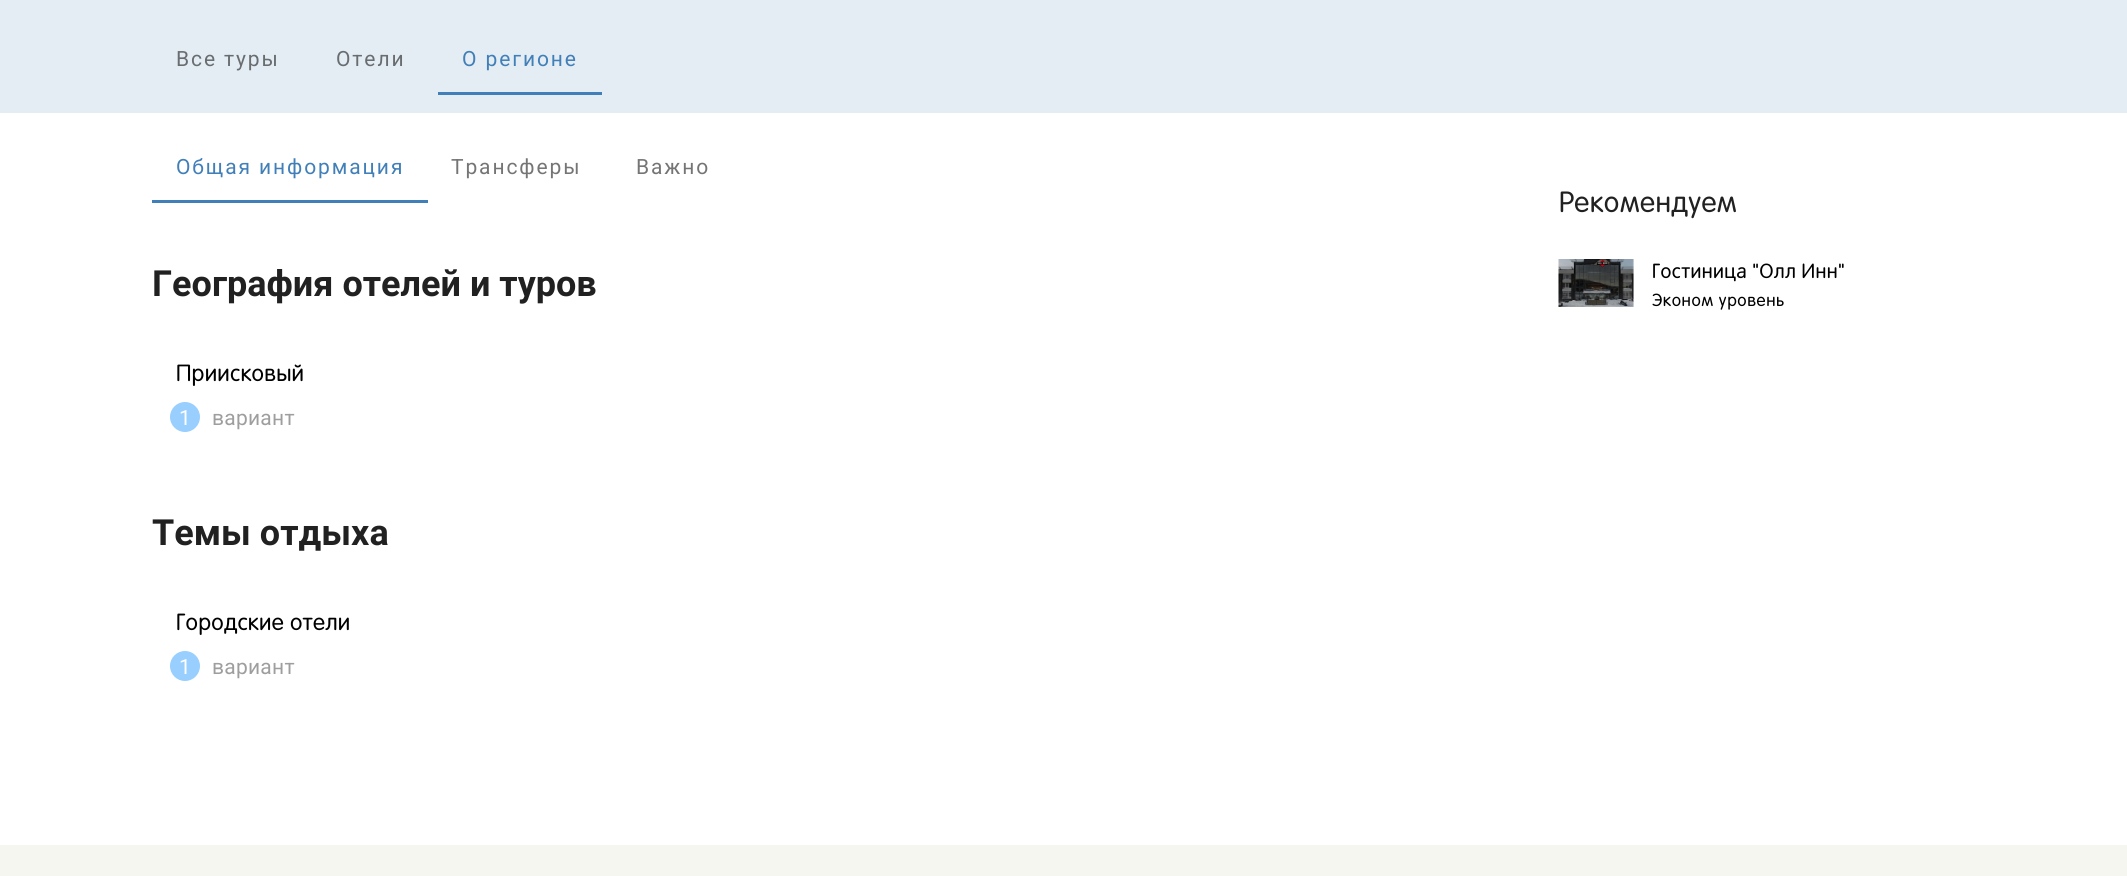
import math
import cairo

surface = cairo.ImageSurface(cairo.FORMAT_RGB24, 2127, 876)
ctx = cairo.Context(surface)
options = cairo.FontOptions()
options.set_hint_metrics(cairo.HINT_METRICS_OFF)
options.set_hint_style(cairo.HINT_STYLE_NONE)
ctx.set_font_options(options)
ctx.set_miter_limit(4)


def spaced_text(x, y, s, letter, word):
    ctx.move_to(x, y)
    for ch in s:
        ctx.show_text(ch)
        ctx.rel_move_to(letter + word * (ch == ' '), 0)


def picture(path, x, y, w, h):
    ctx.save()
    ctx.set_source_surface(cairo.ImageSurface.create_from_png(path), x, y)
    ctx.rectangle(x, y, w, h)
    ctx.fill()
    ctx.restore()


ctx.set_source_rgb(1, 1, 1)
ctx.paint()
ctx.set_source_rgb(0.894, 0.929, 0.957)
ctx.rectangle(0, 0, 2127, 113)
ctx.fill()
ctx.select_font_face("Roboto")
ctx.set_font_size(21)
ctx.set_source_rgb(0.412, 0.427, 0.439)
spaced_text(176, 66, "Все туры", 1.9, 0)
spaced_text(336, 66, "Отели", 1.9, 0)
ctx.set_source_rgb(0.255, 0.498, 0.722)
spaced_text(462, 66, "О регионе", 1.9, 0)
ctx.rectangle(438, 92, 164, 3)
ctx.fill()
spaced_text(176, 174, "Общая информация", 1.9, 0)
ctx.set_source_rgb(0.459, 0.459, 0.459)
spaced_text(451, 174, "Трансферы", 1.9, 0)
spaced_text(636, 174, "Важно", 1.9, 0)
ctx.set_source_rgb(0.255, 0.498, 0.722)
ctx.rectangle(152, 200, 276, 3)
ctx.fill()
ctx.select_font_face("Roboto", cairo.FONT_SLANT_NORMAL, cairo.FONT_WEIGHT_BOLD)
ctx.set_font_size(36)
ctx.set_source_rgb(0.129, 0.129, 0.129)
ctx.move_to(152, 296)
ctx.show_text("География отелей и туров")
ctx.select_font_face("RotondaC")
ctx.set_font_size(24)
ctx.set_source_rgb(0, 0, 0)
spaced_text(176, 381, "Приисковый", 0.25, 0)
ctx.set_source_rgb(0.596, 0.812, 1)
ctx.new_path()
ctx.arc(185, 417, 15, 0, 2 * math.pi)
ctx.fill()
ctx.select_font_face("Roboto")
ctx.set_font_size(21)
ctx.set_source_rgb(1, 1, 1)
spaced_text(179, 425, "1", 0.25, 0)
ctx.set_source_rgb(0.62, 0.62, 0.62)
spaced_text(212, 425, "вариант", 0.25, 0)
ctx.select_font_face("Roboto", cairo.FONT_SLANT_NORMAL, cairo.FONT_WEIGHT_BOLD)
ctx.set_font_size(36)
ctx.set_source_rgb(0.129, 0.129, 0.129)
ctx.move_to(152, 545)
ctx.show_text("Темы отдыха")
ctx.select_font_face("RotondaC")
ctx.set_font_size(24)
ctx.set_source_rgb(0, 0, 0)
spaced_text(176, 630, "Городские отели", 0.25, 0)
ctx.set_source_rgb(0.596, 0.812, 1)
ctx.new_path()
ctx.arc(185, 666, 15, 0, 2 * math.pi)
ctx.fill()
ctx.select_font_face("Roboto")
ctx.set_font_size(21)
ctx.set_source_rgb(1, 1, 1)
spaced_text(179, 674, "1", 0.25, 0)
ctx.set_source_rgb(0.62, 0.62, 0.62)
spaced_text(212, 674, "вариант", 0.25, 0)
ctx.select_font_face("RotondaC")
ctx.set_font_size(30)
ctx.set_source_rgb(0.129, 0.129, 0.129)
spaced_text(1559, 212, "Рекомендуем", 0.4, 0)
picture("img1.png", 1558, 259, 76, 48)
ctx.set_font_size(21)
ctx.set_source_rgb(0, 0, 0)
spaced_text(1652, 278, "Гостиница \"Олл Инн\"", 0.4, 0)
ctx.set_font_size(18)
spaced_text(1652, 306, "Эконом уровень", 0.6, 0)
ctx.set_source_rgb(0.961, 0.961, 0.945)
ctx.rectangle(0, 845, 2127, 31)
ctx.fill()
surface.write_to_png("page.png")
